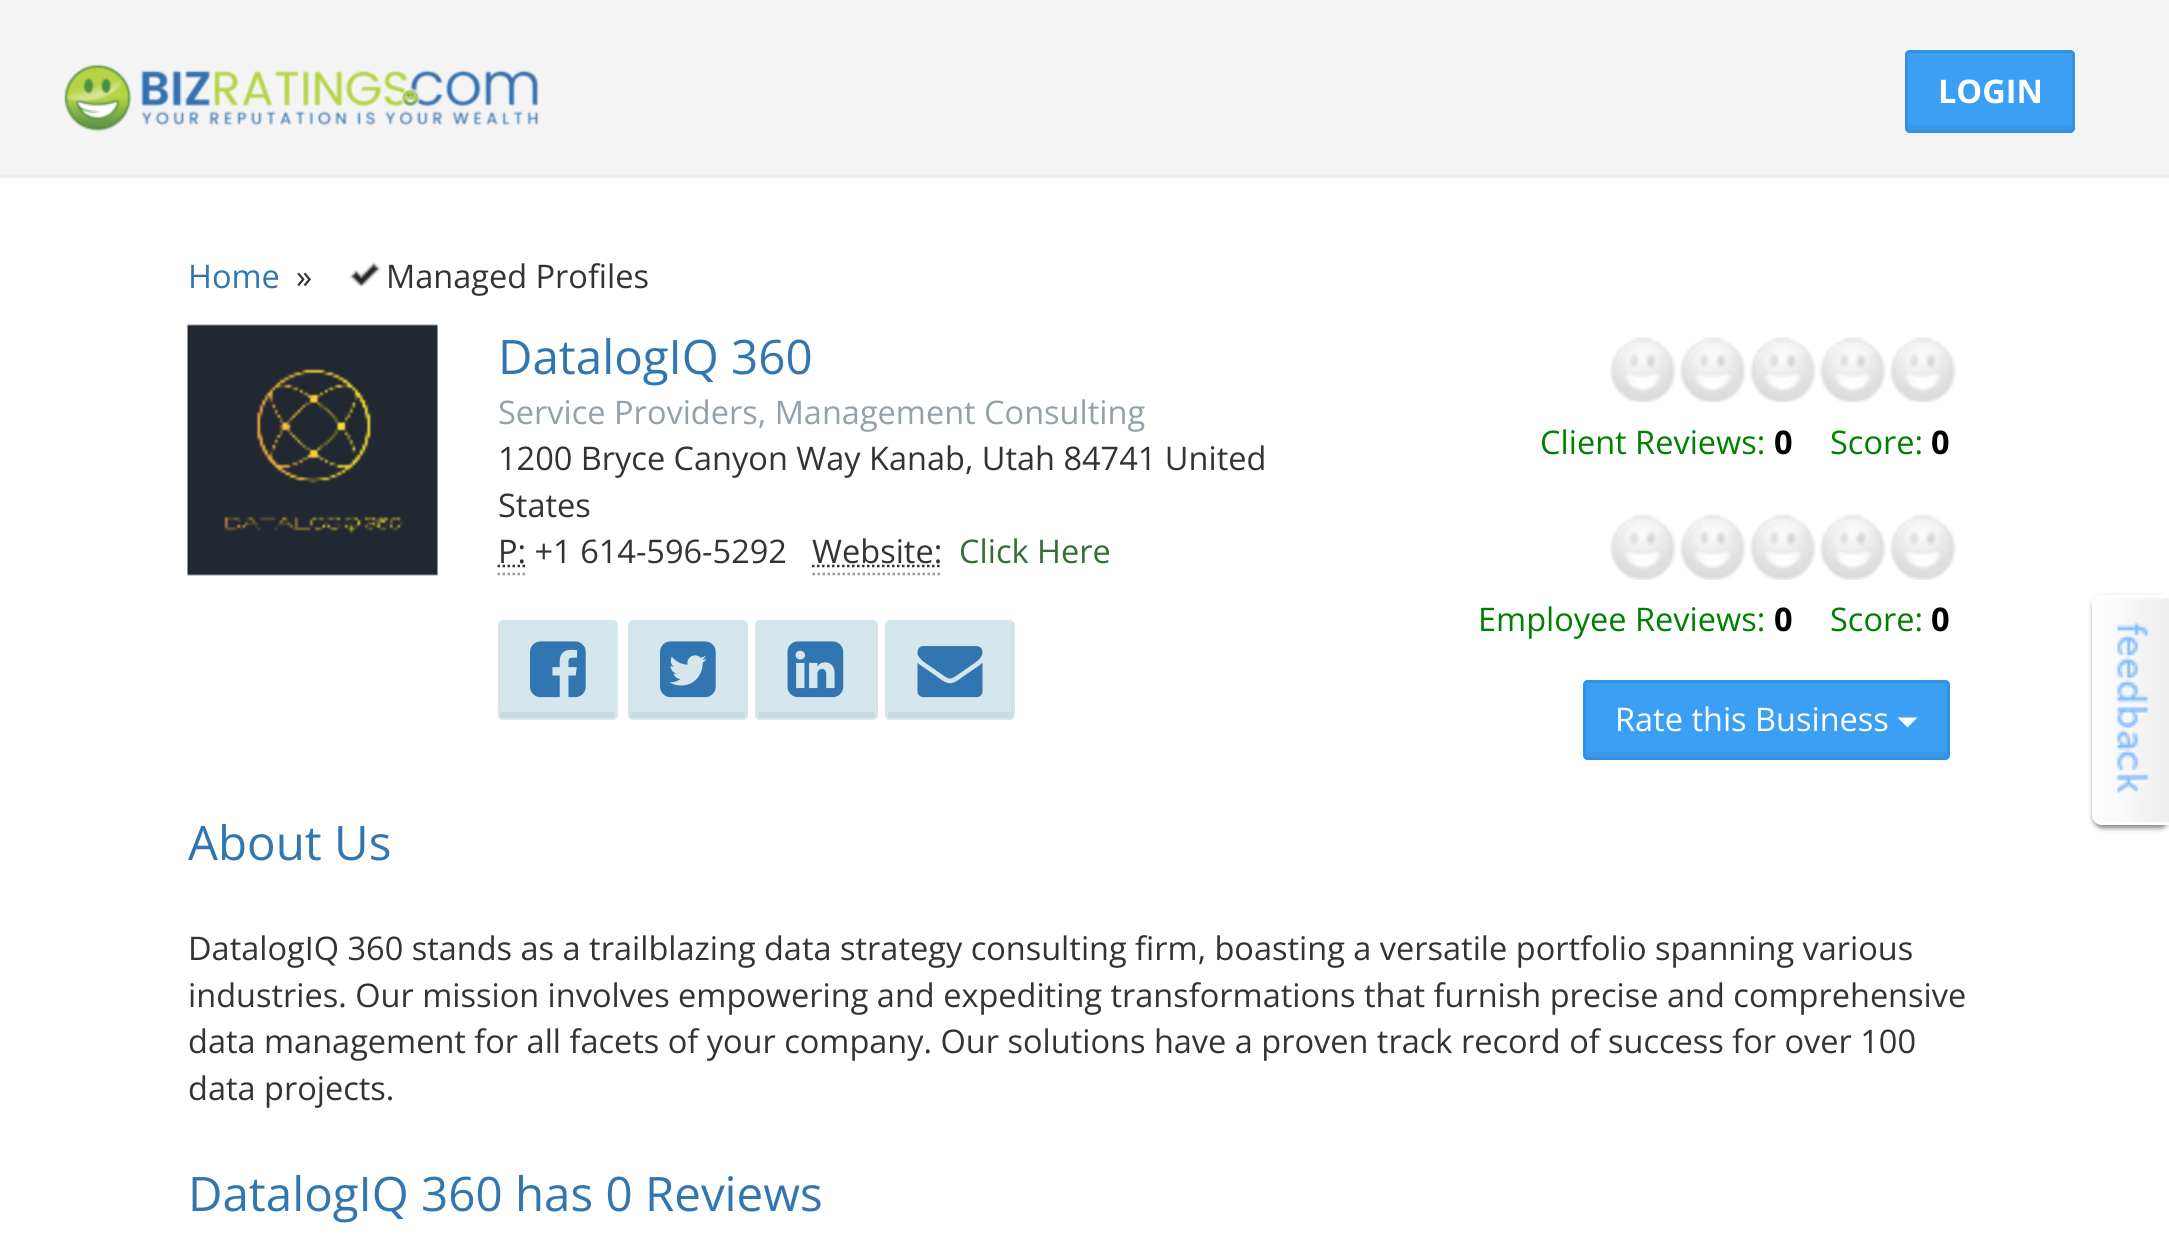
import math
import cairo

surface = cairo.ImageSurface(cairo.FORMAT_RGB24, 2169, 1245)
ctx = cairo.Context(surface)
options = cairo.FontOptions()
options.set_hint_metrics(cairo.HINT_METRICS_OFF)
options.set_hint_style(cairo.HINT_STYLE_NONE)
ctx.set_font_options(options)
ctx.set_miter_limit(4)


def round_rect(x, y, w, h, r):
    ctx.new_sub_path()
    for i, (u, v) in enumerate([(x + w - r, y + h - r), (x + r, y + h - r), (x + r, y + r), (x + w - r, y + r)]):
        ctx.arc(u, v, r, i * math.pi / 2, (i + 1) * math.pi / 2)
    ctx.close_path()


def shadow(x, y, w, h, r, blur, alpha):
    ctx.push_group_with_content(cairo.CONTENT_ALPHA)
    ctx.set_operator(cairo.OPERATOR_SOURCE)
    for i in range(15, -16, -2):
        e = blur * i / 6
        if min(w, h) + 2 * e > 0:
            ctx.set_source_rgba(0, 0, 0, alpha * math.erfc((i - 1) / 8.5) / 2)
            round_rect(x - e, y - e, w + 2 * e, h + 2 * e, max(0, min(r + e + blur * .6, min(w, h) / 2 + e)))
            ctx.fill()
    ctx.mask(ctx.pop_group())


def picture(path, x, y, w, h):
    ctx.save()
    ctx.set_source_surface(cairo.ImageSurface.create_from_png(path), x, y)
    ctx.rectangle(x, y, w, h)
    ctx.fill()
    ctx.restore()


ctx.set_source_rgb(1, 1, 1)
ctx.paint()
ctx.set_source_rgb(0.957, 0.957, 0.957)
ctx.rectangle(0, 0, 2169, 175)
ctx.fill()
ctx.set_source_rgb(0.933, 0.933, 0.933)
ctx.rectangle(0, 175, 2169, 3)
ctx.fill()
picture("img1.png", 63, 64, 476, 68)
ctx.set_source_rgb(0.231, 0.624, 0.953)
round_rect(1905, 50, 170, 83, 5)
ctx.fill()
ctx.set_source_rgb(0.22, 0.592, 0.906)
ctx.new_path()
ctx.move_to(1908, 122)
ctx.line_to(1908, 128)
ctx.curve_to(1908, 129, 1909, 130, 1910, 130)
ctx.line_to(2070, 130)
ctx.curve_to(2072, 130, 2073, 129, 2073, 128)
ctx.line_to(2073, 56)
ctx.curve_to(2073, 55, 2073, 54, 2072, 53)
ctx.line_to(2072, 122)
ctx.curve_to(2072, 124, 2071, 125, 2070, 125)
ctx.line_to(1910, 125)
ctx.curve_to(1909, 125, 1908, 124, 1908, 122)
ctx.close_path()
ctx.fill()
round_rect(1906.5, 51.5, 167, 80, 3.5)
ctx.set_source_rgb(0.196, 0.573, 0.886)
ctx.set_line_width(3)
ctx.stroke()
ctx.select_font_face("Open Sans", cairo.FONT_SLANT_NORMAL, cairo.FONT_WEIGHT_BOLD)
ctx.set_font_size(32.5)
ctx.set_source_rgb(1, 1, 1)
ctx.move_to(1938, 103)
ctx.show_text("LOGIN")
ctx.select_font_face("Open Sans")
ctx.set_source_rgb(0.196, 0.463, 0.694)
ctx.move_to(188, 288)
ctx.show_text("Home")
ctx.set_source_rgb(0.2, 0.2, 0.2)
ctx.move_to(296, 288)
ctx.show_text("»")
picture("img2.png", 349, 261, 32, 26)
ctx.move_to(386, 288)
ctx.show_text("Managed Profiles")
picture("img3.png", 187, 324, 251, 252)
ctx.set_font_size(47.5)
ctx.set_source_rgb(0.196, 0.463, 0.694)
ctx.move_to(498, 374)
ctx.show_text("DatalogIQ 360")
ctx.set_font_size(32.5)
ctx.set_source_rgb(0.573, 0.635, 0.659)
ctx.move_to(498, 424)
ctx.show_text("Service Providers, Management Consulting")
ctx.set_source_rgb(0.2, 0.2, 0.2)
ctx.move_to(498, 470)
ctx.show_text("1200 Bryce Canyon Way Kanab, Utah 84741 United")
ctx.move_to(498, 517)
ctx.show_text("States")
ctx.move_to(498, 563)
ctx.show_text("P: +1 614-596-5292")
ctx.new_path()
ctx.move_to(497.5, 574)
ctx.line_to(525, 574)
ctx.set_source_rgb(0.6, 0.6, 0.6)
ctx.set_line_width(2.5)
ctx.set_dash([2.5, 2.5])
ctx.stroke()
ctx.new_path()
ctx.move_to(497.5, 566)
ctx.line_to(525.5, 566)
ctx.set_source_rgb(0.2, 0.2, 0.2)
ctx.stroke()
ctx.move_to(812, 563)
ctx.show_text("Website:")
ctx.new_path()
ctx.move_to(812.5, 574)
ctx.line_to(942.5, 574)
ctx.set_source_rgb(0.6, 0.6, 0.6)
ctx.stroke()
ctx.new_path()
ctx.move_to(812, 566)
ctx.line_to(942, 566)
ctx.set_source_rgb(0.2, 0.2, 0.2)
ctx.stroke()
ctx.set_source_rgb(0.208, 0.431, 0.208)
ctx.move_to(959, 563)
ctx.show_text("Click Here")
ctx.set_source_rgb(0.835, 0.906, 0.925)
round_rect(498, 620, 120, 100, 5)
ctx.fill()
ctx.set_source_rgb(0.792, 0.859, 0.878)
ctx.new_path()
ctx.move_to(500, 710)
ctx.line_to(500, 716)
ctx.curve_to(500, 717, 501, 718, 502, 718)
ctx.line_to(612, 718)
ctx.curve_to(614, 718, 615, 717, 615, 716)
ctx.line_to(615, 710)
ctx.curve_to(615, 711, 614, 712, 612, 712)
ctx.line_to(502, 712)
ctx.curve_to(501, 712, 500, 711, 500, 710)
ctx.close_path()
ctx.fill()
picture("img4.png", 530, 641, 56, 57)
ctx.set_source_rgb(0.835, 0.906, 0.925)
round_rect(628, 620, 120, 100, 5)
ctx.fill()
ctx.set_source_rgb(0.792, 0.859, 0.878)
ctx.new_path()
ctx.move_to(630, 710)
ctx.line_to(630, 716)
ctx.curve_to(630, 717, 631, 718, 632, 718)
ctx.line_to(742, 718)
ctx.curve_to(744, 718, 745, 717, 745, 716)
ctx.line_to(745, 710)
ctx.curve_to(745, 711, 744, 712, 742, 712)
ctx.line_to(632, 712)
ctx.curve_to(631, 712, 630, 711, 630, 710)
ctx.close_path()
ctx.fill()
picture("img5.png", 660, 641, 56, 57)
ctx.set_source_rgb(0.835, 0.906, 0.925)
round_rect(755, 620, 123, 100, 5)
ctx.fill()
ctx.set_source_rgb(0.792, 0.859, 0.878)
ctx.new_path()
ctx.move_to(758, 710)
ctx.line_to(758, 716)
ctx.curve_to(758, 717, 759, 718, 760, 718)
ctx.line_to(872, 718)
ctx.curve_to(874, 718, 875, 717, 875, 716)
ctx.line_to(875, 710)
ctx.curve_to(875, 711, 874, 712, 872, 712)
ctx.line_to(760, 712)
ctx.curve_to(759, 712, 758, 711, 758, 710)
ctx.close_path()
ctx.fill()
picture("img6.png", 787, 641, 57, 57)
ctx.set_source_rgb(0.835, 0.906, 0.925)
round_rect(885, 620, 130, 100, 5)
ctx.fill()
ctx.set_source_rgb(0.792, 0.859, 0.878)
ctx.new_path()
ctx.move_to(888, 710)
ctx.line_to(888, 716)
ctx.curve_to(888, 717, 889, 718, 890, 718)
ctx.line_to(1010, 718)
ctx.curve_to(1012, 718, 1013, 717, 1013, 716)
ctx.line_to(1013, 626)
ctx.curve_to(1013, 625, 1013, 624, 1012, 623)
ctx.line_to(1012, 710)
ctx.curve_to(1012, 711, 1011, 712, 1010, 712)
ctx.line_to(890, 712)
ctx.curve_to(889, 712, 888, 711, 888, 710)
ctx.close_path()
ctx.fill()
picture("img7.png", 917, 646, 66, 52)
picture("img8.png", 1610, 337, 346, 66)
ctx.set_source_rgb(0, 0.502, 0)
ctx.move_to(1540, 454)
ctx.show_text("Client Reviews:")
ctx.select_font_face("Open Sans", cairo.FONT_SLANT_NORMAL, cairo.FONT_WEIGHT_BOLD)
ctx.set_source_rgb(0, 0, 0)
ctx.move_to(1774, 454)
ctx.show_text("0")
ctx.select_font_face("Open Sans")
ctx.set_source_rgb(0, 0.502, 0)
ctx.move_to(1830, 454)
ctx.show_text("Score:")
ctx.select_font_face("Open Sans", cairo.FONT_SLANT_NORMAL, cairo.FONT_WEIGHT_BOLD)
ctx.set_source_rgb(0, 0, 0)
ctx.move_to(1931, 454)
ctx.show_text("0")
picture("img9.png", 1610, 514, 346, 66)
ctx.select_font_face("Open Sans")
ctx.set_source_rgb(0, 0.502, 0)
ctx.move_to(1478, 631)
ctx.show_text("Employee Reviews:")
ctx.select_font_face("Open Sans", cairo.FONT_SLANT_NORMAL, cairo.FONT_WEIGHT_BOLD)
ctx.set_source_rgb(0, 0, 0)
ctx.move_to(1774, 631)
ctx.show_text("0")
ctx.select_font_face("Open Sans")
ctx.set_source_rgb(0, 0.502, 0)
ctx.move_to(1830, 631)
ctx.show_text("Score:")
ctx.select_font_face("Open Sans", cairo.FONT_SLANT_NORMAL, cairo.FONT_WEIGHT_BOLD)
ctx.set_source_rgb(0, 0, 0)
ctx.move_to(1931, 631)
ctx.show_text("0")
ctx.set_source_rgb(0.231, 0.624, 0.953)
round_rect(1583, 680, 367, 80, 5)
ctx.fill()
ctx.set_source_rgb(0.22, 0.592, 0.906)
ctx.new_path()
ctx.move_to(1585, 750)
ctx.curve_to(1585, 752, 1584, 758, 1588, 758)
ctx.line_to(1946, 758)
ctx.curve_to(1949, 757, 1948, 752, 1948, 750)
ctx.curve_to(1948, 751, 1946, 752, 1945, 752)
ctx.line_to(1588, 752)
ctx.curve_to(1586, 752, 1585, 751, 1585, 750)
ctx.close_path()
ctx.fill()
round_rect(1584.5, 681.5, 364, 77, 3.5)
ctx.set_source_rgb(0.196, 0.573, 0.886)
ctx.set_line_width(3)
ctx.set_dash([])
ctx.stroke()
ctx.select_font_face("Open Sans")
ctx.set_source_rgb(1, 1, 1)
ctx.move_to(1615, 731)
ctx.show_text("Rate this Business")
ctx.new_path()
ctx.move_to(1897.5, 717.5)
ctx.line_to(1917.5, 717.5)
ctx.line_to(1907.5, 727.5)
ctx.close_path()
ctx.fill()
ctx.set_font_size(47.5)
ctx.set_source_rgb(0.196, 0.463, 0.694)
ctx.move_to(188, 860)
ctx.show_text("About Us")
ctx.set_font_size(32.5)
ctx.set_source_rgb(0.2, 0.2, 0.2)
ctx.move_to(188, 960)
ctx.show_text("DatalogIQ 360 stands as a trailblazing data strategy consulting firm, boasting a versatile portfolio spanning various")
ctx.move_to(188, 1007)
ctx.show_text("industries. Our mission involves empowering and expediting transformations that furnish precise and comprehensive")
ctx.move_to(188, 1053)
ctx.show_text("data management for all facets of your company. Our solutions have a proven track record of success for over 100")
ctx.move_to(188, 1100)
ctx.show_text("data projects.")
ctx.set_font_size(47.5)
ctx.set_source_rgb(0.196, 0.463, 0.694)
ctx.move_to(188, 1211)
ctx.show_text("DatalogIQ 360 has 0 Reviews")
ctx.set_source_rgb(0, 0, 0)
shadow(2093, 598, 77, 230, 10, 2.5, 0.5)
picture("img10.png", 2092, 597, 77, 228)
ctx.set_source_rgba(1, 1, 1, 0.25)
ctx.new_path()
ctx.move_to(2105, 600)
ctx.line_to(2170, 600)
ctx.line_to(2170, 598)
ctx.line_to(2103, 598)
ctx.curve_to(2099, 598, 2095, 602, 2095, 606)
ctx.line_to(2095, 815)
ctx.curve_to(2095, 818, 2097, 821, 2099, 822)
ctx.curve_to(2098, 821, 2098, 820, 2098, 818)
ctx.line_to(2098, 608)
ctx.curve_to(2098, 603, 2101, 600, 2105, 600)
ctx.close_path()
ctx.fill()
ctx.set_source_rgb(1, 1, 1)
ctx.set_fill_rule(cairo.FILL_RULE_EVEN_ODD)
ctx.new_path()
ctx.move_to(2102, 595)
ctx.line_to(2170, 595)
ctx.line_to(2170, 825)
ctx.line_to(2102, 825)
ctx.curve_to(2097, 825, 2092, 821, 2092, 815)
ctx.line_to(2092, 605)
ctx.curve_to(2092, 599, 2097, 595, 2102, 595)
ctx.close_path()
ctx.move_to(2102, 598)
ctx.line_to(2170, 598)
ctx.line_to(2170, 822)
ctx.line_to(2102, 822)
ctx.curve_to(2098, 822, 2095, 819, 2095, 815)
ctx.line_to(2095, 605)
ctx.curve_to(2095, 601, 2098, 598, 2102, 598)
ctx.close_path()
ctx.fill()
picture("img11.png", 2116, 622, 33, 172)
surface.write_to_png("page.png")
